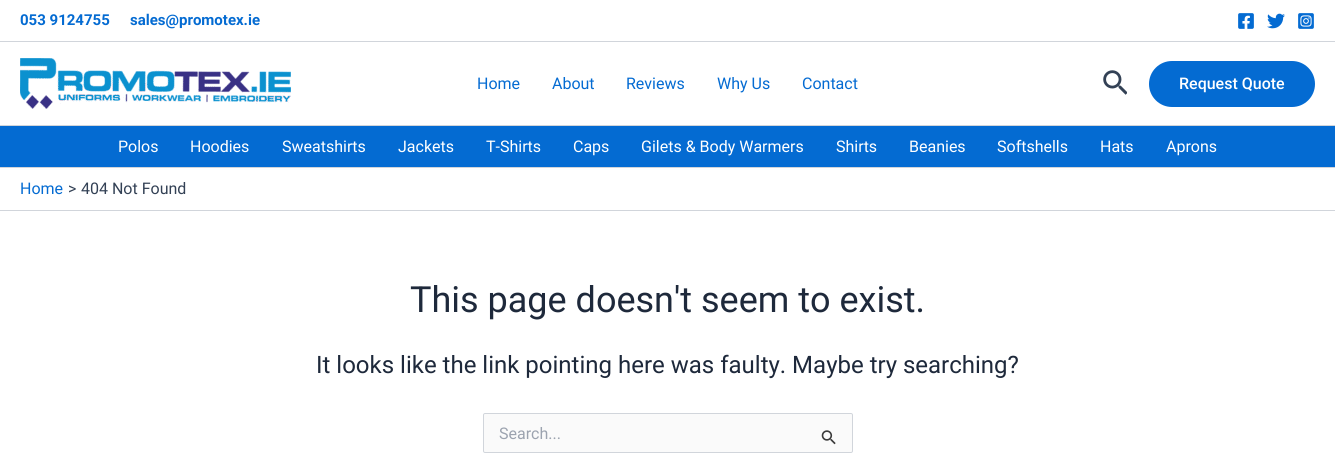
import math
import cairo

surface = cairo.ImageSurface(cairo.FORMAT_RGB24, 1335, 457)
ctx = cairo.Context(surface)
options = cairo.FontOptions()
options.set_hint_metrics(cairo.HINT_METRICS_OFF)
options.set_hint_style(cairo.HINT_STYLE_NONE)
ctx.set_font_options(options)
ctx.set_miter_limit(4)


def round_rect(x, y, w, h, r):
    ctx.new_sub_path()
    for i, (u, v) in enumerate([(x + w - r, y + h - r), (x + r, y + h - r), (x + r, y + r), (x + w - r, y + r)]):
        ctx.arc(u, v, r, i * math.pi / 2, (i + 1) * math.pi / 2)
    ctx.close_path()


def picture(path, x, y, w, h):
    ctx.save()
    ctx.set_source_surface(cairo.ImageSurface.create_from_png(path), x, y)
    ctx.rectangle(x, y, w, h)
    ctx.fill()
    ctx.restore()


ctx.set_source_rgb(1, 1, 1)
ctx.paint()
ctx.set_source_rgb(0.82, 0.835, 0.859)
ctx.rectangle(0, 41, 1335, 1)
ctx.fill()
ctx.select_font_face("Roboto", cairo.FONT_SLANT_NORMAL, cairo.FONT_WEIGHT_BOLD)
ctx.set_font_size(15)
ctx.set_source_rgb(0.016, 0.42, 0.824)
ctx.move_to(20, 25)
ctx.show_text("053 9124755")
ctx.move_to(130, 25)
ctx.show_text("sales@promotex.ie")
picture("img1.png", 1238, 13, 16, 16)
picture("img2.png", 1267, 13, 18, 16)
picture("img3.png", 1298, 13, 16, 16)
ctx.set_source_rgb(0.82, 0.835, 0.859)
ctx.rectangle(0, 125, 1335, 1)
ctx.fill()
picture("img4.png", 20, 58, 271, 51)
ctx.select_font_face("Roboto")
ctx.set_font_size(16)
ctx.set_source_rgb(0.016, 0.42, 0.824)
ctx.move_to(477, 89)
ctx.show_text("Home")
ctx.move_to(552, 89)
ctx.show_text("About")
ctx.move_to(626, 89)
ctx.show_text("Reviews")
ctx.move_to(717, 89)
ctx.show_text("Why Us")
ctx.move_to(802, 89)
ctx.show_text("Contact")
picture("img5.png", 1103, 70, 24, 25)
round_rect(1149, 61, 166, 46, 23)
ctx.fill()
ctx.select_font_face("Roboto Medium")
ctx.set_source_rgb(1, 1, 1)
ctx.move_to(1179, 89)
ctx.show_text("Request Quote")
ctx.set_source_rgb(0.016, 0.42, 0.824)
ctx.rectangle(0, 126, 1335, 41)
ctx.fill()
ctx.set_source_rgb(0.82, 0.835, 0.859)
ctx.rectangle(0, 167, 1335, 1)
ctx.fill()
ctx.select_font_face("Roboto")
ctx.set_source_rgb(1, 1, 1)
ctx.move_to(118, 152)
ctx.show_text("Polos")
ctx.move_to(190, 152)
ctx.show_text("Hoodies")
ctx.move_to(282, 152)
ctx.show_text("Sweatshirts")
ctx.move_to(398, 152)
ctx.show_text("Jackets")
ctx.move_to(486, 152)
ctx.show_text("T-Shirts")
ctx.move_to(573, 152)
ctx.show_text("Caps")
ctx.move_to(641, 152)
ctx.show_text("Gilets & Body Warmers")
ctx.move_to(836, 152)
ctx.show_text("Shirts")
ctx.move_to(909, 152)
ctx.show_text("Beanies")
ctx.move_to(997, 152)
ctx.show_text("Softshells")
ctx.move_to(1100, 152)
ctx.show_text("Hats")
ctx.move_to(1166, 152)
ctx.show_text("Aprons")
ctx.set_source_rgb(0.82, 0.835, 0.859)
ctx.rectangle(0, 210, 1335, 1)
ctx.fill()
ctx.set_source_rgb(0.016, 0.42, 0.824)
ctx.move_to(20, 194)
ctx.show_text("Home")
ctx.set_source_rgb(0.2, 0.255, 0.333)
ctx.move_to(68, 194)
ctx.show_text(">")
ctx.move_to(81, 194)
ctx.show_text("404 Not Found")
ctx.set_font_size(36)
ctx.set_source_rgb(0.118, 0.161, 0.231)
ctx.move_to(410, 312)
ctx.show_text("This page doesn't seem to exist.")
ctx.set_font_size(24)
ctx.move_to(316, 373)
ctx.show_text("It looks like the link pointing here was faulty. Maybe try searching?")
ctx.set_source_rgb(0.98, 0.98, 0.98)
round_rect(483.5, 413.5, 369, 39, 1.5)
ctx.fill_preserve()
ctx.set_source_rgb(0.82, 0.835, 0.859)
ctx.set_line_width(1)
ctx.stroke()
ctx.set_font_size(16)
ctx.set_source_rgb(0.612, 0.639, 0.686)
ctx.move_to(499, 439)
ctx.show_text("Search...")
picture("img6.png", 821, 430, 15, 15)
surface.write_to_png("page.png")
